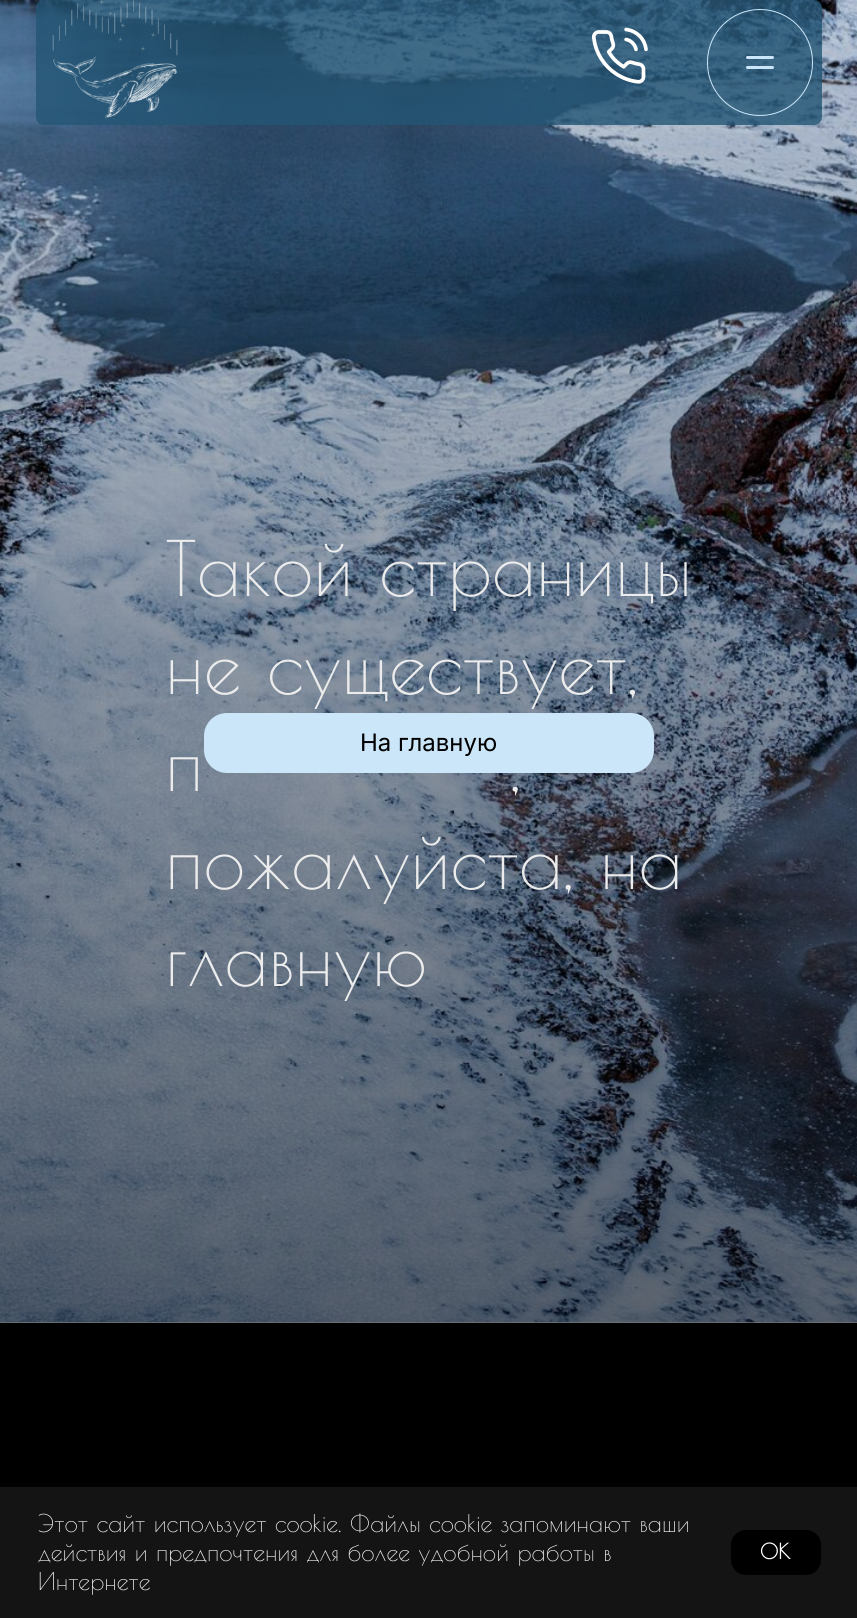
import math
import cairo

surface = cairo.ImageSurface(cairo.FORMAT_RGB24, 857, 1618)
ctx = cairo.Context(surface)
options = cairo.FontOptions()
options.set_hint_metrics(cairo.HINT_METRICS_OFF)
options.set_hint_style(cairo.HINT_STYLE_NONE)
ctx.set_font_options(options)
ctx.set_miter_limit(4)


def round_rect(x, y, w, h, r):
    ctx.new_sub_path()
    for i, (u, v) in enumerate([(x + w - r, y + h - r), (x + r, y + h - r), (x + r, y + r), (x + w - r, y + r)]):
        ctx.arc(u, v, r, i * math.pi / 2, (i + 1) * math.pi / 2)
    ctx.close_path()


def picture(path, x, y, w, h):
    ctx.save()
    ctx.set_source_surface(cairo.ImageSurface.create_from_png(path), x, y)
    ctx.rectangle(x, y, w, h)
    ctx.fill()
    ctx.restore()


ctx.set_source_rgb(1, 1, 1)
ctx.paint()
picture("img1.png", 0, 0, 857, 1323)
gradient = cairo.LinearGradient(429, -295, 429, 1323)
gradient.add_color_stop_rgba(0, 0, 0, 0, 0.05)
gradient.add_color_stop_rgba(1, 0.008, 0.008, 0.008, 0.55)
ctx.set_source(gradient)
ctx.rectangle(0, 0, 857, 1323)
ctx.fill()
ctx.select_font_face("Poiret One")
ctx.set_font_size(75)
ctx.set_source_rgb(0.922, 0.922, 0.922)
ctx.move_to(165, 596)
ctx.show_text("Такой страницы")
ctx.move_to(165, 694)
ctx.show_text("не существует,")
ctx.move_to(165, 791)
ctx.show_text("п")
ctx.move_to(510, 791)
ctx.show_text(",")
ctx.move_to(165, 889)
ctx.show_text("пожалуйста, на")
ctx.move_to(165, 986)
ctx.show_text("главную")
ctx.set_source_rgb(0.796, 0.902, 0.969)
round_rect(204, 713, 450, 60, 23)
ctx.fill()
ctx.select_font_face("Inter")
ctx.set_font_size(24)
ctx.set_source_rgb(0, 0, 0)
ctx.move_to(360, 751)
ctx.show_text("На главную")
ctx.rectangle(0, 1323, 857, 164)
ctx.fill()
ctx.set_source_rgba(0.141, 0.333, 0.455, 0.8)
round_rect(36, 0, 786, 125, 8)
ctx.fill()
picture("img2.png", 52, 0, 126, 119)
picture("img3.png", 591, 27, 57, 57)
round_rect(707.5, 9.5, 105, 106, 52.5)
ctx.set_source_rgb(0.796, 0.902, 0.969)
ctx.set_line_width(1)
ctx.stroke()
round_rect(746, 56, 28, 3, 1.5)
ctx.fill()
round_rect(746, 66, 28, 3, 1.5)
ctx.fill()
ctx.set_source_rgb(0.082, 0.082, 0.082)
ctx.rectangle(0, 1487, 857, 131)
ctx.fill()
ctx.select_font_face("Poiret One")
ctx.set_source_rgb(0.922, 0.922, 0.922)
ctx.move_to(38, 1532)
ctx.show_text("Этот сайт использует cookie. Файлы cookie запоминают ваши")
ctx.move_to(38, 1561)
ctx.show_text("действия и предпочтения для более удобной работы в")
ctx.move_to(38, 1590)
ctx.show_text("Интернете")
ctx.set_source_rgb(0, 0, 0)
round_rect(731, 1530, 90, 45, 15)
ctx.fill()
ctx.select_font_face("Poiret One", cairo.FONT_SLANT_NORMAL, cairo.FONT_WEIGHT_BOLD)
ctx.set_font_size(21)
ctx.set_source_rgb(1, 1, 1)
ctx.move_to(760, 1559)
ctx.show_text("OK")
surface.write_to_png("page.png")
